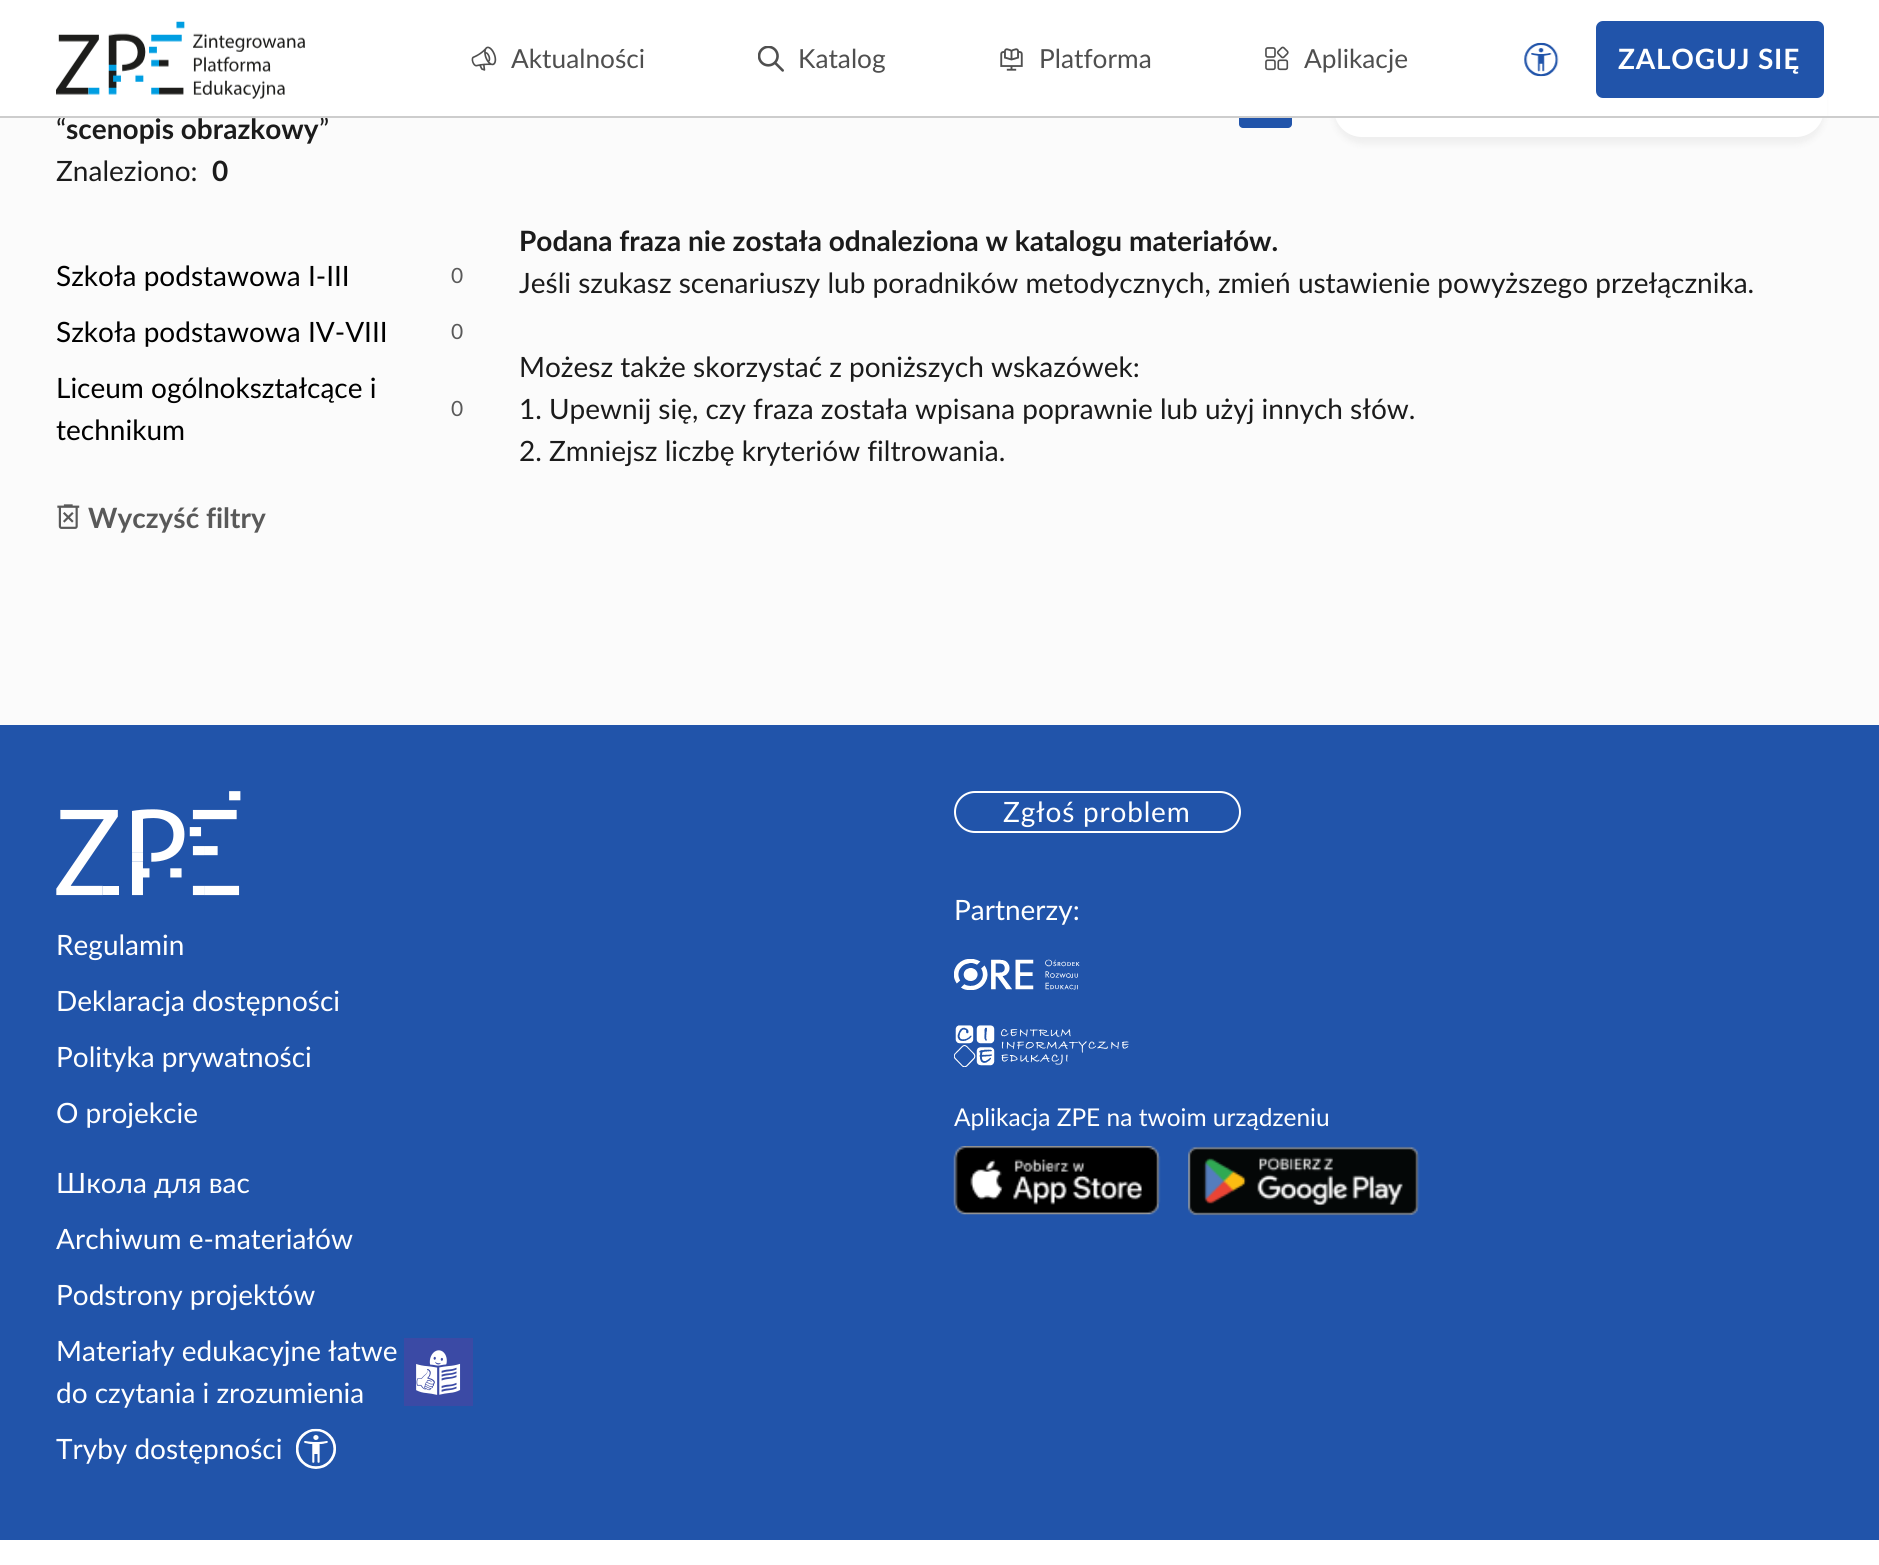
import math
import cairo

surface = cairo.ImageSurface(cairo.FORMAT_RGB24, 1879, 1565)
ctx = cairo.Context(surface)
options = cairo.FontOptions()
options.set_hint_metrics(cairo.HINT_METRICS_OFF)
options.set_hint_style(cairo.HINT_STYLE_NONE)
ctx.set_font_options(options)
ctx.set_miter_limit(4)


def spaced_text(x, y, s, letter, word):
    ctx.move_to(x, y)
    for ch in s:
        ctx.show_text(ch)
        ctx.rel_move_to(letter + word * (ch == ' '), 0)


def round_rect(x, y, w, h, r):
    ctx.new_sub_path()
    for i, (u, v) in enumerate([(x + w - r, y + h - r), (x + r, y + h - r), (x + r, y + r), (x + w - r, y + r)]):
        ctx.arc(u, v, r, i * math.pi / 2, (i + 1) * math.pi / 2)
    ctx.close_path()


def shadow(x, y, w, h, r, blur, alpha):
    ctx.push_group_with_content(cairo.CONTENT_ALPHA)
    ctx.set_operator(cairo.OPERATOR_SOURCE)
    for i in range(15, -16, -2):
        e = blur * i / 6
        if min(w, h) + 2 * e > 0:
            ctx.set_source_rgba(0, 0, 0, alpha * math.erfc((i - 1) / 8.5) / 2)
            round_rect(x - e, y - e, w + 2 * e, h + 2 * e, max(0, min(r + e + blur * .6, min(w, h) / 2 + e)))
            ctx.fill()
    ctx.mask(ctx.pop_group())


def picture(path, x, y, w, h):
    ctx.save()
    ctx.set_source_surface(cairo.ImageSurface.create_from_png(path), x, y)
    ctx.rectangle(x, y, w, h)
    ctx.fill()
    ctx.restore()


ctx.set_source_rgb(1, 1, 1)
ctx.paint()
ctx.set_source_rgb(0.984, 0.984, 0.984)
ctx.rectangle(0, 118, 1879, 607)
ctx.fill()
ctx.set_source_rgb(0.129, 0.329, 0.667)
round_rect(1239, 75, 53, 53, 4)
ctx.fill()
ctx.set_source_rgb(0, 0, 0)
shadow(1334, 74, 490, 70, 28, 3.5, 0.05)
ctx.set_source_rgb(1, 1, 1)
round_rect(1334, 67, 490, 70, 28)
ctx.fill()
ctx.rectangle(1239, 75, 588, 41)
ctx.fill()
picture("img1.png", 56, 21, 249, 78)
picture("img2.png", 471, 46, 26, 25)
ctx.select_font_face("Lato")
ctx.set_font_size(26.25)
ctx.set_source_rgb(0.31, 0.31, 0.31)
ctx.move_to(511, 68)
ctx.show_text("Aktualności")
picture("img3.png", 758, 46, 26, 26)
ctx.move_to(798, 68)
ctx.show_text("Katalog")
picture("img4.png", 1000, 48, 23, 23)
ctx.move_to(1039, 68)
ctx.show_text("Platforma")
picture("img5.png", 1265, 46, 24, 25)
ctx.move_to(1304, 68)
ctx.show_text("Aplikacje")
picture("img6.png", 1524, 42, 35, 35)
ctx.set_source_rgb(0.129, 0.329, 0.667)
round_rect(1596, 21, 228, 77, 7)
ctx.fill()
ctx.select_font_face("Lato", cairo.FONT_SLANT_NORMAL, cairo.FONT_WEIGHT_BOLD)
ctx.set_font_size(28)
ctx.set_source_rgb(1, 1, 1)
spaced_text(1618, 69, "ZALOGUJ SIĘ", 0.8, 0)
ctx.select_font_face("Lato")
ctx.set_source_rgb(0.106, 0.106, 0.106)
ctx.move_to(56, 139)
ctx.show_text("“")
ctx.move_to(319, 139)
ctx.show_text("”")
ctx.set_source_rgb(0.804, 0.804, 0.804)
ctx.rectangle(0, 116, 1879, 2)
ctx.fill()
ctx.select_font_face("Lato", cairo.FONT_SLANT_NORMAL, cairo.FONT_WEIGHT_BOLD)
ctx.set_source_rgb(0.106, 0.106, 0.106)
ctx.move_to(66, 139)
ctx.show_text("scenopis obrazkowy")
ctx.select_font_face("Lato")
ctx.move_to(56, 181)
ctx.show_text("Znaleziono:")
ctx.select_font_face("Lato", cairo.FONT_SLANT_NORMAL, cairo.FONT_WEIGHT_BOLD)
ctx.move_to(212, 181)
ctx.show_text("0")
ctx.select_font_face("Lato")
ctx.set_source_rgb(0, 0, 0)
ctx.move_to(56, 286)
ctx.show_text("Szkoła podstawowa I-III")
ctx.set_font_size(21)
ctx.set_source_rgb(0.349, 0.349, 0.349)
ctx.move_to(451, 283)
ctx.show_text("0")
ctx.set_font_size(28)
ctx.set_source_rgb(0, 0, 0)
ctx.move_to(56, 342)
ctx.show_text("Szkoła podstawowa IV-VIII")
ctx.set_font_size(21)
ctx.set_source_rgb(0.349, 0.349, 0.349)
ctx.move_to(451, 339)
ctx.show_text("0")
ctx.set_font_size(28)
ctx.set_source_rgb(0, 0, 0)
ctx.move_to(56, 398)
ctx.show_text("Liceum ogólnokształcące i")
ctx.move_to(56, 440)
ctx.show_text("technikum")
ctx.set_font_size(21)
ctx.set_source_rgb(0.349, 0.349, 0.349)
ctx.move_to(451, 416)
ctx.show_text("0")
picture("img7.png", 57, 504, 23, 25)
ctx.select_font_face("Lato", cairo.FONT_SLANT_NORMAL, cairo.FONT_WEIGHT_BOLD)
ctx.set_font_size(28)
ctx.move_to(88, 528)
ctx.show_text("Wyczyść filtry")
ctx.set_source_rgb(0.106, 0.106, 0.106)
ctx.move_to(519, 251)
ctx.show_text("Podana fraza nie została odnaleziona w katalogu materiałów.")
ctx.select_font_face("Lato")
ctx.move_to(519, 293)
ctx.show_text("Jeśli szukasz scenariuszy lub poradników metodycznych, zmień ustawienie powyższego przełącznika.")
ctx.move_to(519, 377)
ctx.show_text("Możesz także skorzystać z poniższych wskazówek:")
ctx.move_to(519, 419)
ctx.show_text("1. Upewnij się, czy fraza została wpisana poprawnie lub użyj innych słów.")
ctx.move_to(519, 461)
ctx.show_text("2. Zmniejsz liczbę kryteriów filtrowania.")
ctx.set_source_rgb(0.129, 0.329, 0.667)
ctx.rectangle(0, 725, 1879, 815)
ctx.fill()
picture("img8.png", 56, 791, 185, 105)
ctx.set_source_rgb(1, 1, 1)
ctx.move_to(56, 955)
ctx.show_text("Regulamin")
ctx.move_to(56, 1011)
ctx.show_text("Deklaracja dostępności")
ctx.move_to(56, 1067)
ctx.show_text("Polityka prywatności")
ctx.move_to(56, 1123)
ctx.show_text("O projekcie")
ctx.move_to(56, 1193)
ctx.show_text("Школа для вас")
ctx.move_to(56, 1249)
ctx.show_text("Archiwum e-materiałów")
ctx.move_to(56, 1305)
ctx.show_text("Podstrony projektów")
ctx.move_to(56, 1361)
ctx.show_text("Materiały edukacyjne łatwe")
ctx.move_to(56, 1403)
ctx.show_text("do czytania i zrozumienia")
picture("img9.png", 404, 1338, 69, 68)
ctx.move_to(56, 1459)
ctx.show_text("Tryby dostępności")
picture("img10.png", 296, 1428, 40, 41)
round_rect(955, 792, 285, 40, 20)
ctx.stroke()
spaced_text(1003, 822, "Zgłoś problem", 0.8, 0)
ctx.move_to(954, 920)
ctx.show_text("Partnerzy:")
picture("img11.png", 954, 959, 126, 31)
picture("img12.png", 954, 1025, 175, 42)
ctx.set_font_size(24.5)
ctx.move_to(954, 1126)
ctx.show_text("Aplikacja ZPE na twoim urządzeniu")
picture("img13.png", 953, 1146, 208, 69)
picture("img14.png", 1188, 1146, 232, 70)
surface.write_to_png("page.png")
